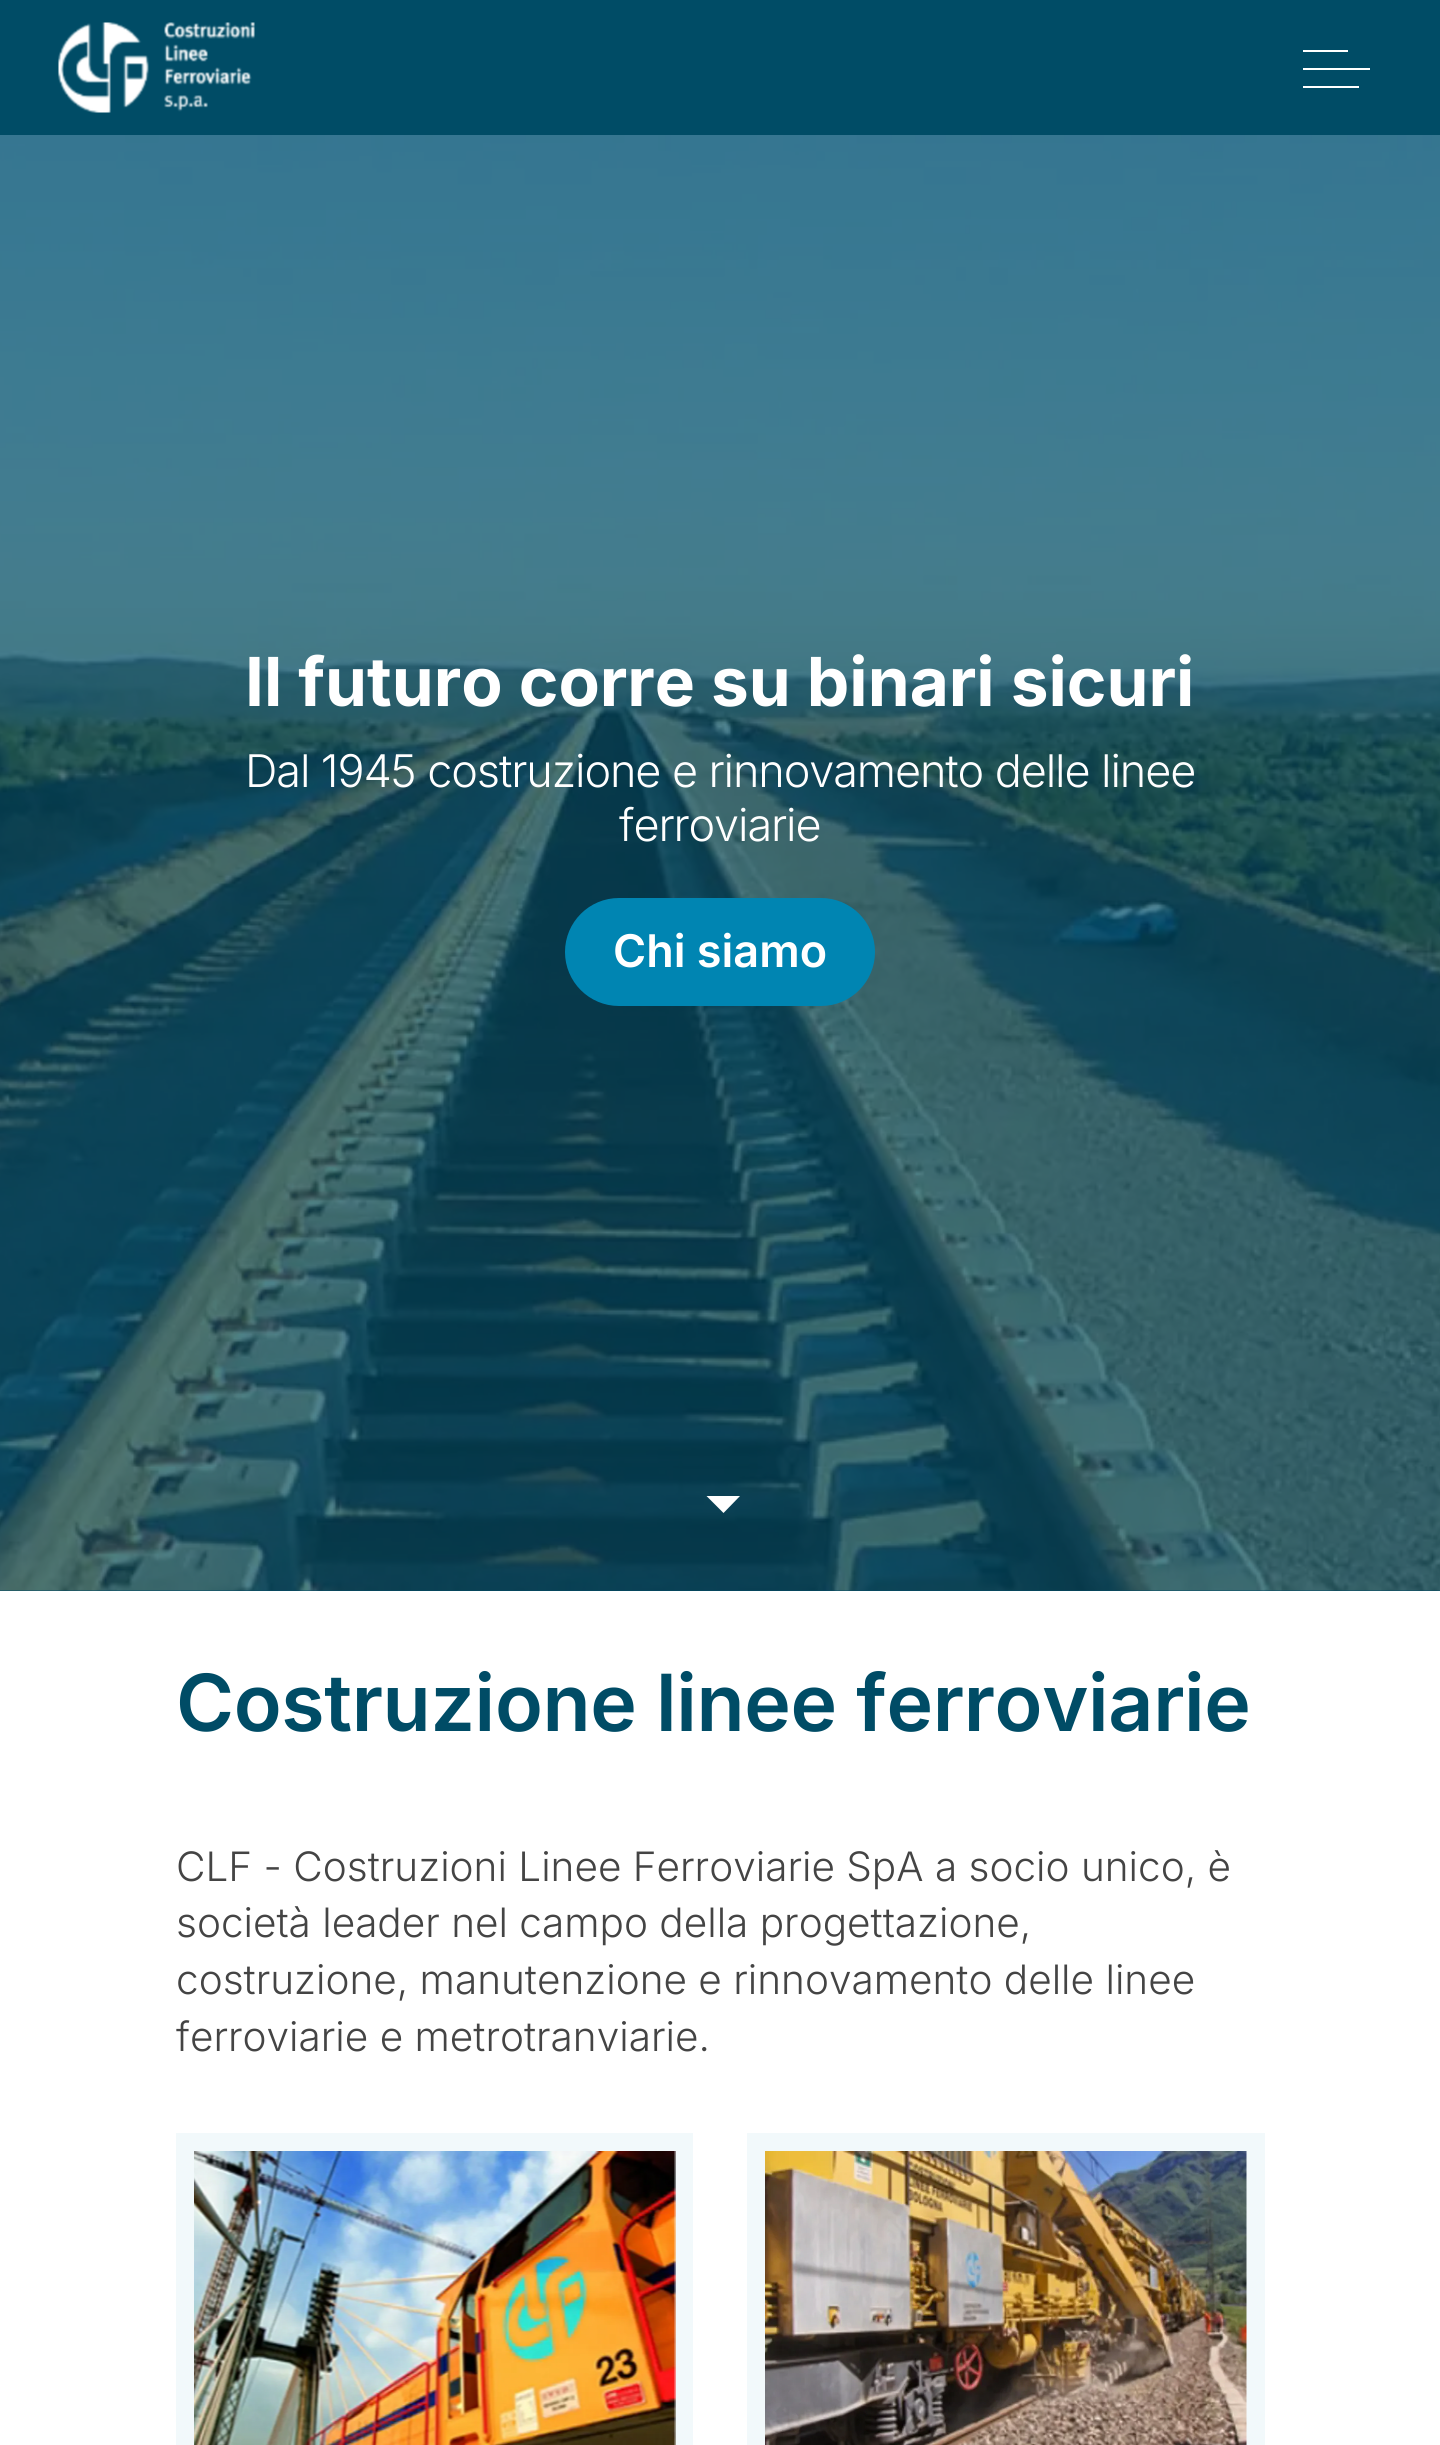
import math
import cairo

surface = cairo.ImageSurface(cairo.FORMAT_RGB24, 1440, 2445)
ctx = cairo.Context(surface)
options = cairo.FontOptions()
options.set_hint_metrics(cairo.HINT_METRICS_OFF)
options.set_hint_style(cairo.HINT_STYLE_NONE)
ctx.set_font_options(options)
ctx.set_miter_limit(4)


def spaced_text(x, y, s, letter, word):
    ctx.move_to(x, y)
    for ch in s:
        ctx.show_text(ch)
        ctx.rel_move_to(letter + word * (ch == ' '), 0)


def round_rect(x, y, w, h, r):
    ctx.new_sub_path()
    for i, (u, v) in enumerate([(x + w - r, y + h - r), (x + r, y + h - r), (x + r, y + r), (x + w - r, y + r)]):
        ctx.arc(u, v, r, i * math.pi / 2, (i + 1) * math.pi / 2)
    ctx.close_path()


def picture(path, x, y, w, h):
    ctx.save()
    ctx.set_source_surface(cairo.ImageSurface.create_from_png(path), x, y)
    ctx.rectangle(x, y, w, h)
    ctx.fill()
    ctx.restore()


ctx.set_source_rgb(1, 1, 1)
ctx.paint()
ctx.set_source_rgb(0, 0.298, 0.4)
ctx.rectangle(0, 0, 1440, 1591)
ctx.fill()
picture("img1.png", 58, 22, 197, 91)
ctx.set_source_rgb(1, 1, 1)
ctx.rectangle(1303, 68, 67, 2)
ctx.fill()
ctx.rectangle(1303, 50, 45, 2)
ctx.fill()
ctx.rectangle(1303, 86, 56, 2)
ctx.fill()
picture("img2.png", 0, 135, 1440, 1456)
ctx.select_font_face("Inter", cairo.FONT_SLANT_NORMAL, cairo.FONT_WEIGHT_BOLD)
ctx.set_font_size(67.5)
ctx.move_to(245, 706)
ctx.show_text("Il futuro corre su binari sicuri")
ctx.select_font_face("Inter Light")
ctx.set_font_size(45)
spaced_text(245, 787, "Dal 1945 costruzione e rinnovamento delle linee", -1.1, 0)
spaced_text(619, 841, "ferroviarie", -1.1, 0)
ctx.set_source_rgb(0, 0.522, 0.698)
round_rect(566, 899, 308, 106, 53)
ctx.fill_preserve()
ctx.stroke()
ctx.select_font_face("Inter SemiBold")
ctx.set_source_rgb(1, 1, 1)
ctx.move_to(613, 967)
ctx.show_text("Chi siamo")
ctx.new_path()
ctx.move_to(706.5, 1496)
ctx.line_to(740, 1496)
ctx.line_to(723.5, 1513)
ctx.close_path()
ctx.fill()
ctx.set_font_size(78.75)
ctx.set_source_rgb(0, 0.298, 0.4)
spaced_text(176, 1731, "Costruzione linee ferroviarie", -0.35, 0)
ctx.select_font_face("Inter Light")
ctx.set_font_size(40.5)
ctx.set_source_rgb(0.267, 0.267, 0.267)
ctx.move_to(176, 1881)
ctx.show_text("CLF - Costruzioni Linee Ferroviarie SpA a socio unico, è")
ctx.move_to(176, 1937)
ctx.show_text("società leader nel campo della progettazione,")
ctx.move_to(176, 1994)
ctx.show_text("costruzione, manutenzione e rinnovamento delle linee")
ctx.move_to(176, 2051)
ctx.show_text("ferroviarie e metrotranviarie.")
ctx.set_source_rgb(0.949, 0.976, 0.984)
ctx.rectangle(176, 2133, 517, 312)
ctx.fill()
picture("img3.png", 194, 2151, 482, 294)
ctx.rectangle(747, 2133, 518, 312)
ctx.fill()
picture("img4.png", 765, 2151, 482, 294)
surface.write_to_png("page.png")
